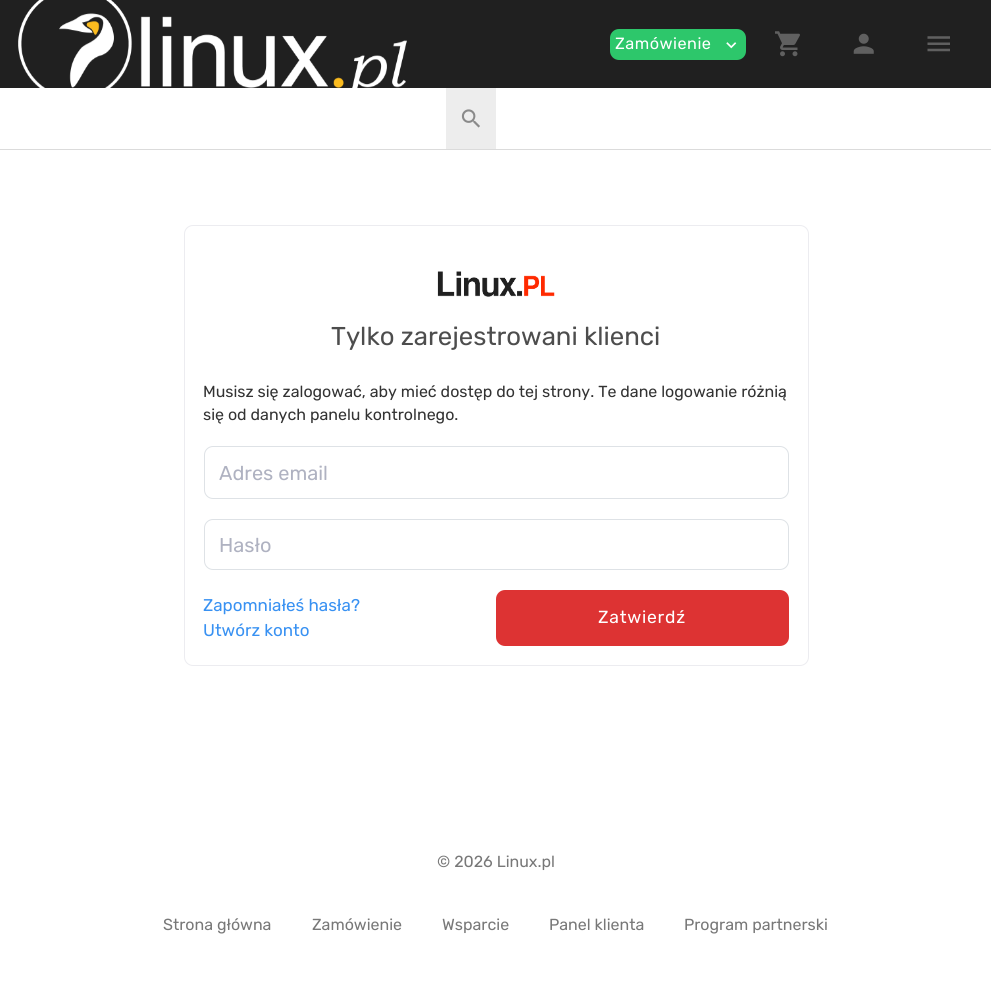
import math
import cairo

surface = cairo.ImageSurface(cairo.FORMAT_RGB24, 991, 984)
ctx = cairo.Context(surface)
options = cairo.FontOptions()
options.set_hint_metrics(cairo.HINT_METRICS_OFF)
options.set_hint_style(cairo.HINT_STYLE_NONE)
ctx.set_font_options(options)
ctx.set_miter_limit(4)


def spaced_text(x, y, s, letter, word):
    ctx.move_to(x, y)
    for ch in s:
        ctx.show_text(ch)
        ctx.rel_move_to(letter + word * (ch == ' '), 0)


def round_rect(x, y, w, h, r):
    ctx.new_sub_path()
    for i, (u, v) in enumerate([(x + w - r, y + h - r), (x + r, y + h - r), (x + r, y + r), (x + w - r, y + r)]):
        ctx.arc(u, v, r, i * math.pi / 2, (i + 1) * math.pi / 2)
    ctx.close_path()


def picture(path, x, y, w, h):
    ctx.save()
    ctx.set_source_surface(cairo.ImageSurface.create_from_png(path), x, y)
    ctx.rectangle(x, y, w, h)
    ctx.fill()
    ctx.restore()


ctx.set_source_rgb(1, 1, 1)
ctx.paint()
ctx.set_source_rgb(0.125, 0.125, 0.125)
ctx.rectangle(0, 0, 991, 88)
ctx.fill()
picture("img1.png", 18, 0, 389, 89)
ctx.set_source_rgb(0.176, 0.78, 0.42)
round_rect(610, 29, 136, 31, 9)
ctx.fill()
ctx.select_font_face("Rubik")
ctx.set_font_size(16.25)
ctx.set_source_rgb(1, 1, 1)
spaced_text(615, 49, "Zamówienie", 0.5, 0)
picture("img2.png", 726, 42, 11, 7)
picture("img3.png", 775, 31, 25, 26)
picture("img4.png", 853, 33, 21, 21)
picture("img5.png", 927, 36, 23, 16)
ctx.set_source_rgb(0.859, 0.859, 0.859)
ctx.rectangle(0, 149, 991, 1)
ctx.fill()
ctx.set_source_rgb(0.929, 0.929, 0.929)
ctx.rectangle(446, 88, 50, 61)
ctx.fill()
picture("img6.png", 461, 109, 19, 19)
round_rect(184.5, 225.5, 624, 440, 8.5)
ctx.set_source_rgb(0.922, 0.925, 0.941)
ctx.set_line_width(1)
ctx.stroke()
picture("img7.png", 437, 271, 118, 26)
ctx.set_font_size(25.75)
ctx.set_source_rgb(0.302, 0.302, 0.302)
ctx.move_to(331, 345)
ctx.show_text("Tylko zarejestrowani klienci")
ctx.set_font_size(16)
ctx.set_source_rgb(0.2, 0.2, 0.2)
ctx.move_to(203, 397)
ctx.show_text("Musisz się zalogować, aby mieć dostęp do tej strony. Te dane logowanie różnią")
ctx.move_to(203, 420)
ctx.show_text("się od danych panelu kontrolnego.")
round_rect(204.5, 446.5, 584, 52, 8.5)
ctx.set_source_rgb(0.871, 0.886, 0.902)
ctx.stroke()
ctx.set_font_size(20)
ctx.set_source_rgb(0.686, 0.698, 0.757)
ctx.move_to(219, 480)
ctx.show_text("Adres email")
round_rect(204.5, 519.5, 584, 50, 8.5)
ctx.set_source_rgb(0.871, 0.886, 0.902)
ctx.stroke()
ctx.set_source_rgb(0.686, 0.698, 0.757)
ctx.move_to(219, 552)
ctx.show_text("Hasło")
ctx.set_font_size(17)
ctx.set_source_rgb(0.22, 0.569, 0.949)
ctx.move_to(203, 611)
ctx.show_text("Zapomniałeś hasła?")
ctx.move_to(203, 636)
ctx.show_text("Utwórz konto")
ctx.set_source_rgb(0.867, 0.2, 0.2)
round_rect(496, 590, 293, 56, 9)
ctx.fill()
ctx.set_font_size(17.5)
ctx.set_source_rgb(1, 1, 1)
spaced_text(598, 623, "Zatwierdź", 0.75, 0)
ctx.set_font_size(16)
ctx.set_source_rgb(0.471, 0.471, 0.471)
ctx.move_to(437, 867)
ctx.show_text("© 2026 Linux.pl")
ctx.move_to(163, 930)
ctx.show_text("Strona główna")
ctx.move_to(312, 930)
ctx.show_text("Zamówienie")
ctx.move_to(442, 930)
ctx.show_text("Wsparcie")
ctx.move_to(549, 930)
ctx.show_text("Panel klienta")
ctx.move_to(684, 930)
ctx.show_text("Program partnerski")
surface.write_to_png("page.png")
